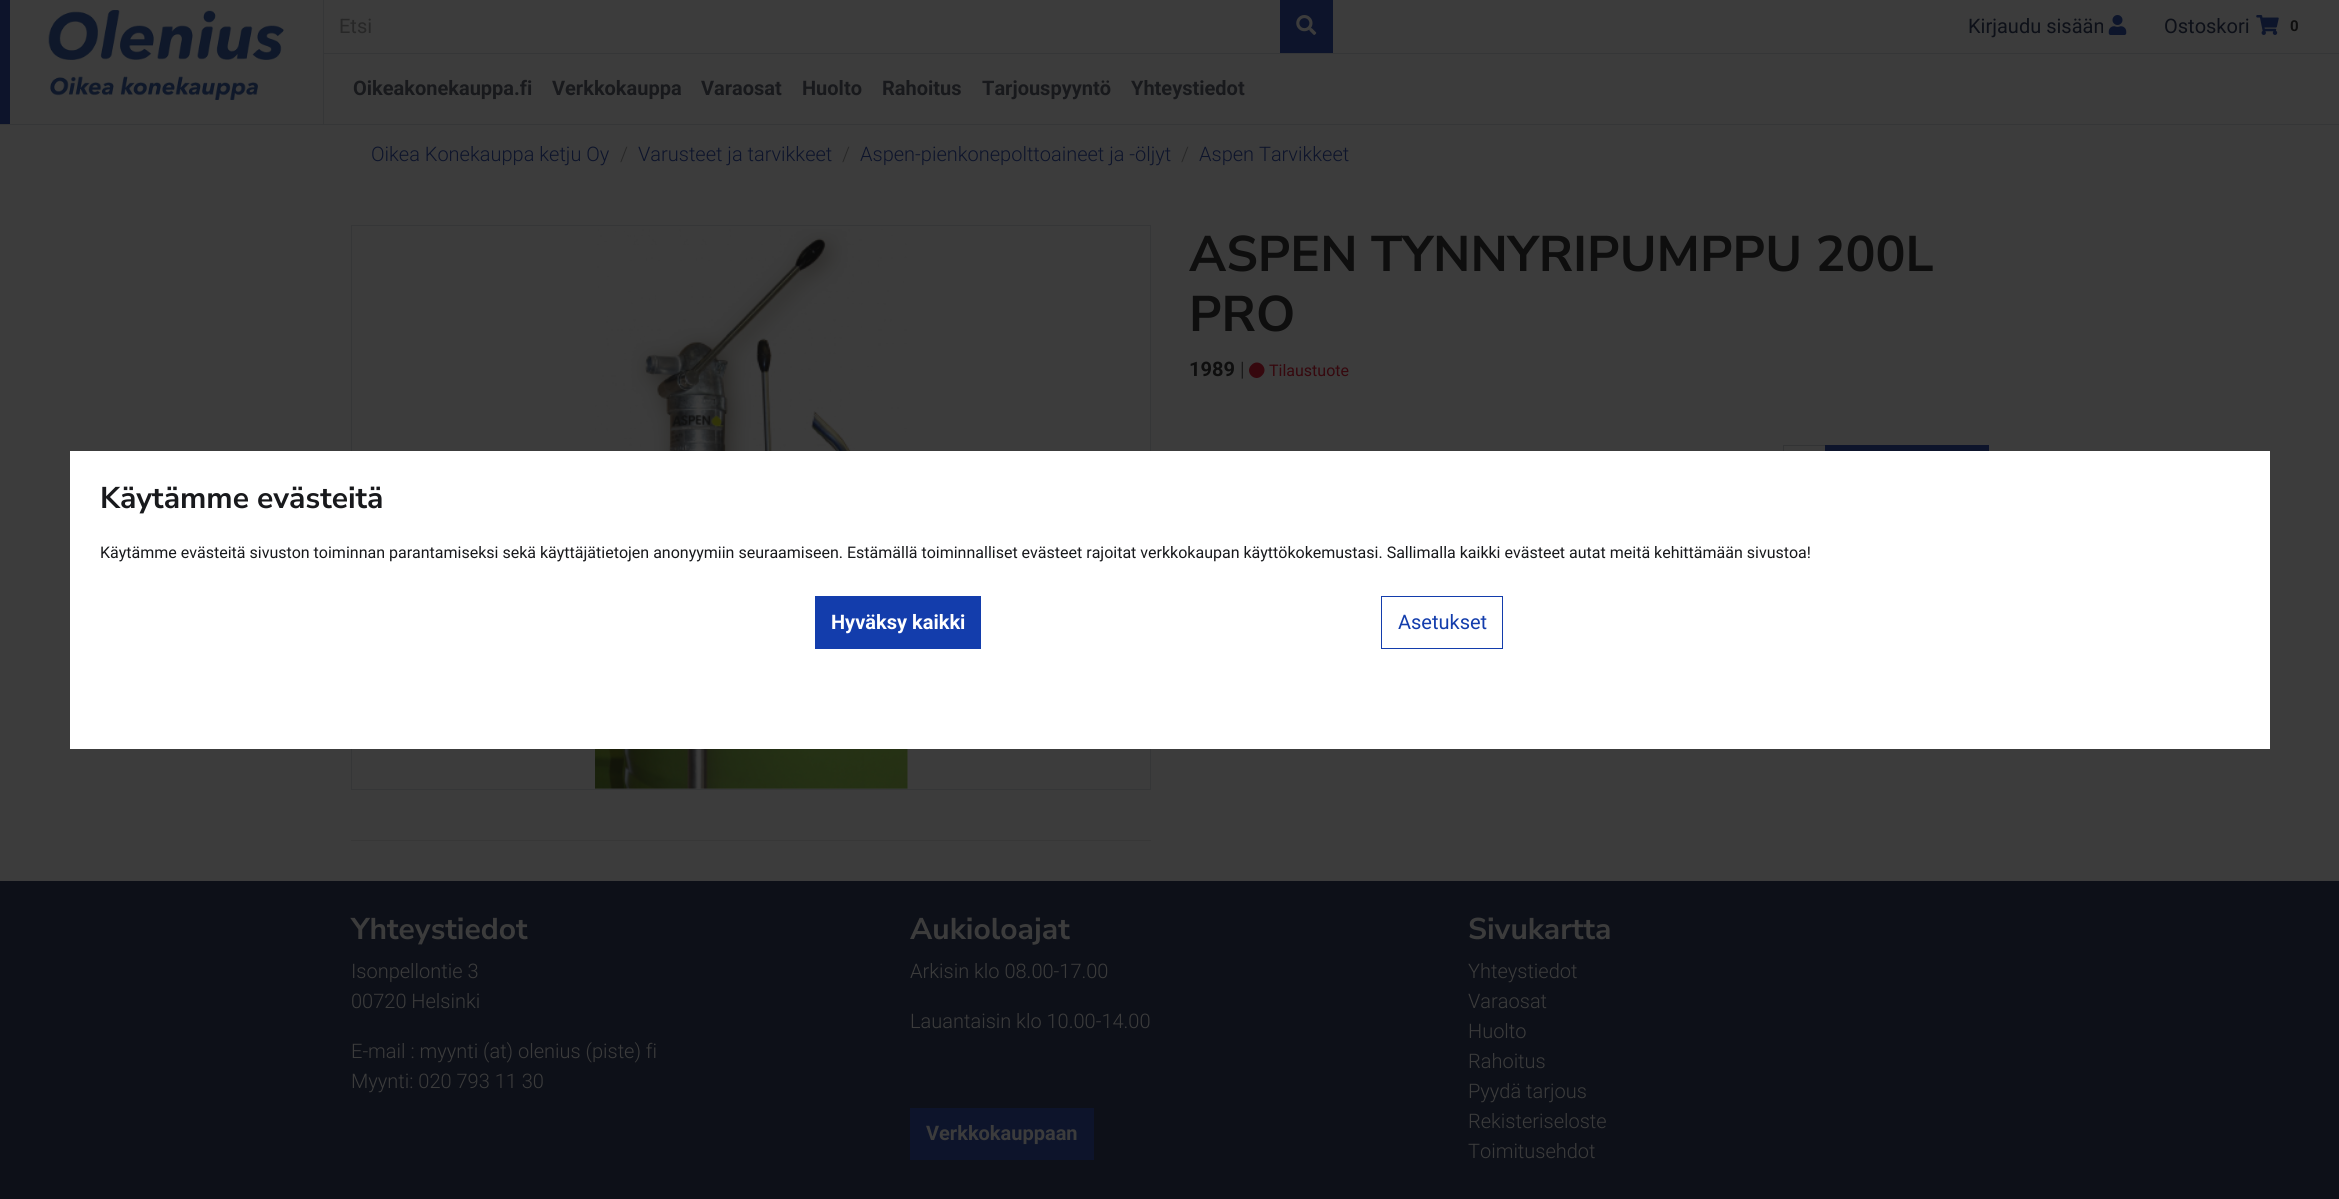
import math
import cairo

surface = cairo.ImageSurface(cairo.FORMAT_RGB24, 2339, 1199)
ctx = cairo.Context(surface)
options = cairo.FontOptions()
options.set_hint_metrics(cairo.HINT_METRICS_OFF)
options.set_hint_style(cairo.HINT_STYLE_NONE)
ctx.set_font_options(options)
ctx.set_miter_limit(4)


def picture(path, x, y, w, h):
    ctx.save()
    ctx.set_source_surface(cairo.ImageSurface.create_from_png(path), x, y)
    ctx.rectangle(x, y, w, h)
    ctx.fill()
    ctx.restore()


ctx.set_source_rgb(0.235, 0.235, 0.235)
ctx.paint()
ctx.set_source_rgb(0.208, 0.212, 0.216)
ctx.rectangle(0, 124, 2339, 1)
ctx.fill()
ctx.set_source_rgb(0.051, 0.082, 0.169)
ctx.rectangle(0, 0, 10, 124)
ctx.fill()
ctx.set_source_rgb(0.208, 0.212, 0.216)
ctx.rectangle(323, 0, 1, 124)
ctx.fill()
picture("img1.png", 48, 10, 236, 90)
ctx.select_font_face("Roboto")
ctx.set_font_size(20)
ctx.set_source_rgb(0.153, 0.153, 0.153)
ctx.move_to(339, 33)
ctx.show_text("Etsi")
ctx.set_source_rgb(0.051, 0.082, 0.169)
ctx.rectangle(1280, 0, 53, 53)
ctx.fill()
picture("img2.png", 1296, 15, 21, 20)
ctx.set_source_rgb(0.051, 0.063, 0.094)
ctx.move_to(1968, 33)
ctx.show_text("Kirjaudu sisään")
picture("img3.png", 2108, 15, 19, 20)
ctx.move_to(2164, 33)
ctx.show_text("Ostoskori")
picture("img4.png", 2256, 15, 23, 20)
ctx.select_font_face("Roboto", cairo.FONT_SLANT_NORMAL, cairo.FONT_WEIGHT_BOLD)
ctx.set_font_size(15)
ctx.set_source_rgb(0.055, 0.055, 0.055)
ctx.move_to(2290, 31)
ctx.show_text("0")
ctx.set_source_rgb(0.208, 0.212, 0.216)
ctx.rectangle(324, 53, 2015, 1)
ctx.fill()
ctx.set_font_size(20)
ctx.set_source_rgb(0.094, 0.098, 0.11)
ctx.move_to(353, 95)
ctx.show_text("Oikeakonekauppa.fi")
ctx.move_to(552, 95)
ctx.show_text("Verkkokauppa")
ctx.move_to(701, 95)
ctx.show_text("Varaosat")
ctx.move_to(802, 95)
ctx.show_text("Huolto")
ctx.move_to(882, 95)
ctx.show_text("Rahoitus")
ctx.move_to(982, 95)
ctx.show_text("Tarjouspyyntö")
ctx.move_to(1131, 95)
ctx.show_text("Yhteystiedot")
ctx.select_font_face("Roboto Light")
ctx.set_source_rgb(0.051, 0.082, 0.169)
ctx.move_to(371, 161)
ctx.show_text("Oikea Konekauppa ketju Oy")
ctx.set_source_rgb(0.153, 0.153, 0.153)
ctx.move_to(620, 161)
ctx.show_text("/")
ctx.set_source_rgb(0.051, 0.082, 0.169)
ctx.move_to(638, 161)
ctx.show_text("Varusteet ja tarvikkeet")
ctx.set_source_rgb(0.153, 0.153, 0.153)
ctx.move_to(842, 161)
ctx.show_text("/")
ctx.set_source_rgb(0.051, 0.082, 0.169)
ctx.move_to(860, 161)
ctx.show_text("Aspen-pienkonepolttoaineet ja -öljyt")
ctx.set_source_rgb(0.153, 0.153, 0.153)
ctx.move_to(1181, 161)
ctx.show_text("/")
ctx.set_source_rgb(0.051, 0.082, 0.169)
ctx.move_to(1199, 161)
ctx.show_text("Aspen Tarvikkeet")
ctx.rectangle(351.5, 225.5, 799, 564)
ctx.set_source_rgb(0.208, 0.212, 0.216)
ctx.set_line_width(1)
ctx.stroke()
picture("img5.png", 595, 229, 313, 560)
ctx.select_font_face("Nunito Sans", cairo.FONT_SLANT_NORMAL, cairo.FONT_WEIGHT_BOLD)
ctx.set_font_size(50)
ctx.set_source_rgb(0.055, 0.055, 0.055)
ctx.move_to(1189, 271)
ctx.show_text("ASPEN TYNNYRIPUMPPU 200L")
ctx.move_to(1189, 331)
ctx.show_text("PRO")
ctx.select_font_face("Roboto", cairo.FONT_SLANT_NORMAL, cairo.FONT_WEIGHT_BOLD)
ctx.set_font_size(20)
ctx.move_to(1189, 376)
ctx.show_text("1989")
ctx.select_font_face("Roboto Light")
ctx.move_to(1240, 376)
ctx.show_text("|")
ctx.set_source_rgb(0.212, 0.035, 0.055)
ctx.new_path()
ctx.move_to(1251.5, 365)
ctx.curve_to(1258.5, 357.5, 1269.5, 368.5, 1262, 375.5)
ctx.curve_to(1255, 383, 1244, 372, 1251.5, 365)
ctx.close_path()
ctx.fill()
ctx.select_font_face("Roboto")
ctx.set_font_size(16)
ctx.move_to(1269, 376)
ctx.show_text("Tilaustuote")
ctx.rectangle(1783.5, 445.5, 42, 52)
ctx.set_source_rgb(0.196, 0.2, 0.204)
ctx.stroke()
ctx.set_source_rgb(0.051, 0.082, 0.169)
ctx.rectangle(1825, 445, 164, 6)
ctx.fill()
ctx.set_source_rgb(0.216, 0.216, 0.216)
ctx.rectangle(351, 840, 800, 1)
ctx.fill()
ctx.set_source_rgb(0.051, 0.063, 0.094)
ctx.rectangle(0, 881, 2339, 318)
ctx.fill()
ctx.select_font_face("Nunito Sans", cairo.FONT_SLANT_NORMAL, cairo.FONT_WEIGHT_BOLD)
ctx.set_font_size(30)
ctx.set_source_rgb(0.235, 0.235, 0.235)
ctx.move_to(351, 939)
ctx.show_text("Yhteystiedot")
ctx.select_font_face("Roboto Light")
ctx.set_font_size(20)
ctx.move_to(351, 978)
ctx.show_text("Isonpellontie 3")
ctx.move_to(351, 1008)
ctx.show_text("00720 Helsinki")
ctx.move_to(351, 1058)
ctx.show_text("E-mail : myynti (at) olenius (piste) fi")
ctx.move_to(351, 1088)
ctx.show_text("Myynti: 020 793 11 30")
ctx.select_font_face("Nunito Sans", cairo.FONT_SLANT_NORMAL, cairo.FONT_WEIGHT_BOLD)
ctx.set_font_size(30)
ctx.move_to(910, 939)
ctx.show_text("Aukioloajat")
ctx.select_font_face("Roboto Light")
ctx.set_font_size(20)
ctx.move_to(910, 978)
ctx.show_text("Arkisin klo 08.00-17.00")
ctx.move_to(910, 1028)
ctx.show_text("Lauantaisin klo 10.00-14.00")
ctx.set_source_rgb(0.051, 0.082, 0.169)
ctx.rectangle(910, 1108, 184, 52)
ctx.fill()
ctx.select_font_face("Roboto", cairo.FONT_SLANT_NORMAL, cairo.FONT_WEIGHT_BOLD)
ctx.set_source_rgb(0.235, 0.235, 0.235)
ctx.move_to(926, 1140)
ctx.show_text("Verkkokauppaan")
ctx.select_font_face("Nunito Sans", cairo.FONT_SLANT_NORMAL, cairo.FONT_WEIGHT_BOLD)
ctx.set_font_size(30)
ctx.move_to(1468, 939)
ctx.show_text("Sivukartta")
ctx.select_font_face("Roboto Light")
ctx.set_font_size(20)
ctx.move_to(1468, 978)
ctx.show_text("Yhteystiedot")
ctx.move_to(1468, 1008)
ctx.show_text("Varaosat")
ctx.move_to(1468, 1038)
ctx.show_text("Huolto")
ctx.move_to(1468, 1068)
ctx.show_text("Rahoitus")
ctx.move_to(1468, 1098)
ctx.show_text("Pyydä tarjous")
ctx.move_to(1468, 1128)
ctx.show_text("Rekisteriseloste")
ctx.move_to(1468, 1158)
ctx.show_text("Toimitusehdot")
ctx.set_source_rgb(1, 1, 1)
ctx.rectangle(70, 451, 2200, 298)
ctx.fill()
ctx.select_font_face("Nunito Sans", cairo.FONT_SLANT_NORMAL, cairo.FONT_WEIGHT_BOLD)
ctx.set_font_size(30)
ctx.set_source_rgb(0.094, 0.098, 0.11)
ctx.move_to(100, 508)
ctx.show_text("Käytämme evästeitä")
ctx.select_font_face("Roboto")
ctx.set_font_size(16)
ctx.move_to(100, 558)
ctx.show_text("Käytämme evästeitä sivuston toiminnan parantamiseksi sekä käyttäjätietojen anonyymiin seuraamiseen. Estämällä toiminnalliset evästeet rajoitat verkkokaupan käyttökokemustasi. Sallimalla kaikki evästeet autat meitä kehittämään sivustoa!")
ctx.set_source_rgb(0.078, 0.239, 0.675)
ctx.rectangle(815, 596, 166, 53)
ctx.fill()
ctx.select_font_face("Roboto", cairo.FONT_SLANT_NORMAL, cairo.FONT_WEIGHT_BOLD)
ctx.set_font_size(20)
ctx.set_source_rgb(1, 1, 1)
ctx.move_to(831, 629)
ctx.show_text("Hyväksy kaikki")
ctx.rectangle(1381.5, 596.5, 121, 52)
ctx.set_source_rgb(0.078, 0.239, 0.675)
ctx.stroke()
ctx.select_font_face("Roboto")
ctx.move_to(1398, 629)
ctx.show_text("Asetukset")
surface.write_to_png("page.png")
